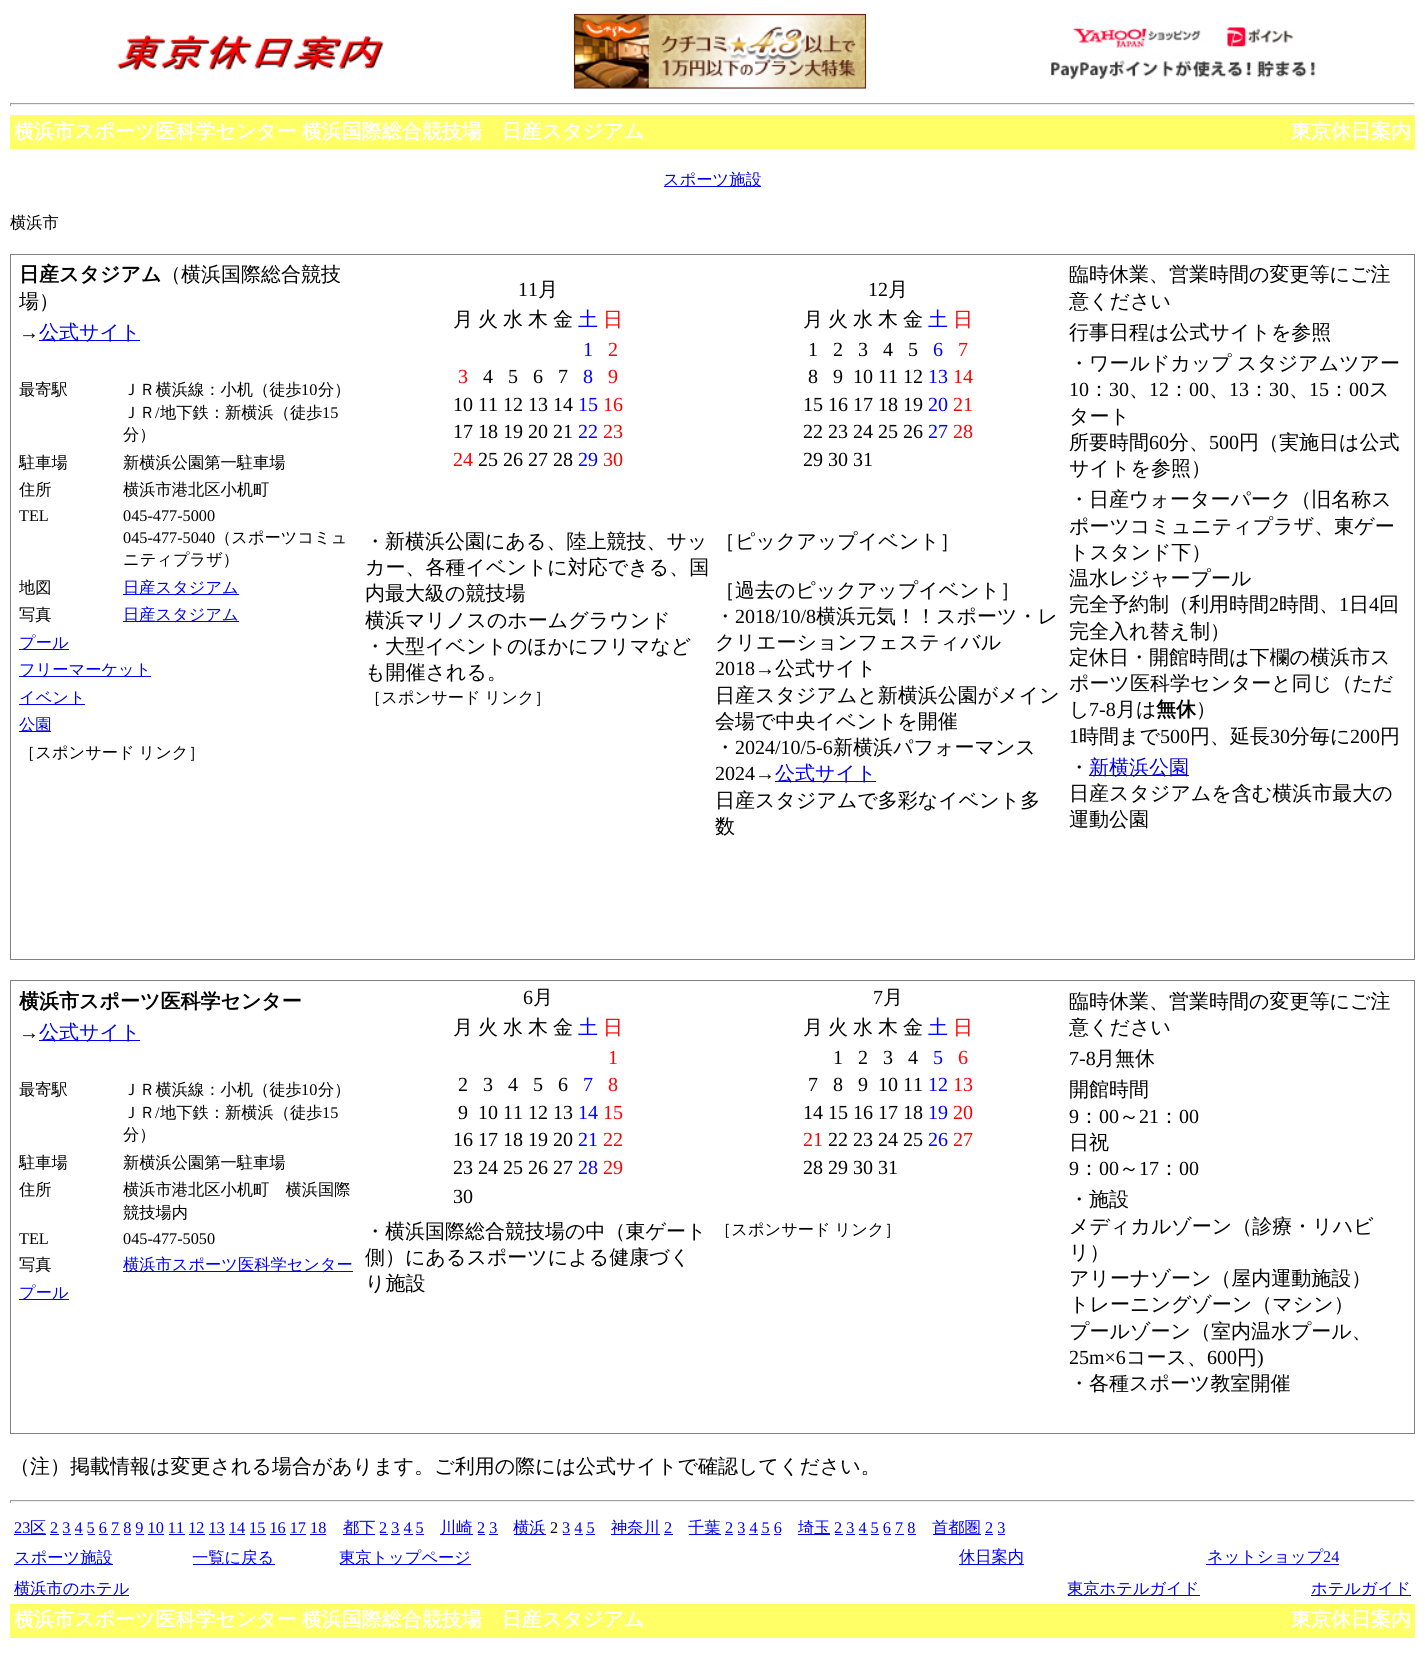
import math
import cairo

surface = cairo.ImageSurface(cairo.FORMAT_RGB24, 1425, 1665)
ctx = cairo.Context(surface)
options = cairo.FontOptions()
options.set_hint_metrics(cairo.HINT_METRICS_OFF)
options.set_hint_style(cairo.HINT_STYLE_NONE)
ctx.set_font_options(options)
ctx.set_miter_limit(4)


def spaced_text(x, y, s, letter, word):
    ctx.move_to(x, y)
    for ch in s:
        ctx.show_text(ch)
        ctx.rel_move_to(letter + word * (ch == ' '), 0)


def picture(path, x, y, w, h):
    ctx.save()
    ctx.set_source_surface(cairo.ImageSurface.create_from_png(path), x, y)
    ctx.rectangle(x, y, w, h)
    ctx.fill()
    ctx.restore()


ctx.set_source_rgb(1, 1, 1)
ctx.paint()
picture("img1.png", 117, 34, 267, 37)
picture("img2.png", 573, 13, 294, 76)
picture("img3.png", 1051, 27, 265, 53)
ctx.set_source_rgb(0.624, 0.624, 0.624)
ctx.rectangle(10, 103, 1405, 1)
ctx.fill()
ctx.set_source_rgb(0.933, 0.933, 0.933)
ctx.rectangle(1414, 103, 1, 3)
ctx.fill()
ctx.rectangle(10, 104, 1405, 1)
ctx.fill()
ctx.set_source_rgb(0.624, 0.624, 0.624)
ctx.rectangle(10, 103, 1, 3)
ctx.fill()
ctx.set_source_rgb(1, 1, 0.4)
ctx.rectangle(10, 115, 1405, 34)
ctx.fill()
ctx.select_font_face("WenQuanYi Zen Hei", cairo.FONT_SLANT_NORMAL, cairo.FONT_WEIGHT_BOLD)
ctx.set_font_size(20)
ctx.set_source_rgb(1, 1, 1)
spaced_text(14, 138, "横浜市スポーツ医科学センター 横浜国際総合競技場　日産スタジアム", 0, -1)
ctx.move_to(1291, 138)
ctx.show_text("東京休日案内")
ctx.set_source_rgb(0, 0, 0.933)
ctx.rectangle(664, 186, 97, 1)
ctx.fill()
ctx.select_font_face("WenQuanYi Zen Hei Medium")
ctx.set_font_size(16.25)
ctx.move_to(663, 185)
ctx.show_text("スポーツ施設")
ctx.set_source_rgb(0, 0, 0)
ctx.move_to(10, 228)
ctx.show_text("横浜市")
ctx.rectangle(10.5, 254.5, 1404, 705)
ctx.set_source_rgb(0.502, 0.502, 0.502)
ctx.set_line_width(1)
ctx.stroke()
ctx.select_font_face("WenQuanYi Zen Hei", cairo.FONT_SLANT_NORMAL, cairo.FONT_WEIGHT_BOLD)
ctx.set_font_size(20)
ctx.set_source_rgb(0, 0, 0)
ctx.move_to(19, 281)
ctx.show_text("日産スタジアム")
ctx.select_font_face("WenQuanYi Zen Hei Medium")
ctx.move_to(161, 281)
ctx.show_text("（横浜国際総合競技")
ctx.move_to(19, 308)
ctx.show_text("場）")
ctx.select_font_face("Liberation Serif")
ctx.move_to(19, 339)
ctx.show_text("→")
ctx.set_source_rgb(0, 0, 0.933)
ctx.rectangle(39, 340, 101, 1)
ctx.fill()
ctx.select_font_face("WenQuanYi Zen Hei Medium")
ctx.move_to(39, 339)
ctx.show_text("公式サイト")
ctx.set_font_size(16.25)
ctx.set_source_rgb(0, 0, 0)
ctx.move_to(19, 395)
ctx.show_text("最寄駅")
ctx.move_to(123, 395)
ctx.show_text("ＪＲ横浜線：小机（徒歩")
ctx.select_font_face("Liberation Serif")
ctx.move_to(301, 395)
ctx.show_text("10")
ctx.select_font_face("WenQuanYi Zen Hei Medium")
ctx.move_to(318, 395)
ctx.show_text("分）")
ctx.move_to(123, 418)
ctx.show_text("ＪＲ")
ctx.select_font_face("Liberation Serif")
ctx.move_to(155, 418)
ctx.show_text("/")
ctx.select_font_face("WenQuanYi Zen Hei Medium")
ctx.move_to(160, 418)
ctx.show_text("地下鉄：新横浜（徒歩")
ctx.select_font_face("Liberation Serif")
ctx.move_to(322, 418)
ctx.show_text("15")
ctx.select_font_face("WenQuanYi Zen Hei Medium")
ctx.move_to(123, 440)
ctx.show_text("分）")
ctx.move_to(19, 468)
ctx.show_text("駐車場")
ctx.move_to(123, 468)
ctx.show_text("新横浜公園第一駐車場")
ctx.move_to(19, 495)
ctx.show_text("住所")
ctx.move_to(123, 495)
ctx.show_text("横浜市港北区小机町")
ctx.select_font_face("Liberation Serif")
ctx.move_to(19, 521)
ctx.show_text("TEL")
ctx.move_to(123, 521)
ctx.show_text("045-477-5000")
ctx.move_to(123, 543)
ctx.show_text("045-477-5040")
ctx.select_font_face("WenQuanYi Zen Hei Medium")
ctx.move_to(215, 543)
ctx.show_text("（スポーツコミュ")
ctx.move_to(123, 565)
ctx.show_text("ニティプラザ）")
ctx.move_to(19, 593)
ctx.show_text("地図")
ctx.set_source_rgb(0, 0, 0.933)
ctx.rectangle(123, 594, 116, 1)
ctx.fill()
ctx.move_to(123, 593)
ctx.show_text("日産スタジアム")
ctx.set_source_rgb(0, 0, 0)
ctx.move_to(19, 620)
ctx.show_text("写真")
ctx.set_source_rgb(0, 0, 0.933)
ctx.rectangle(123, 621, 116, 1)
ctx.fill()
ctx.move_to(123, 620)
ctx.show_text("日産スタジアム")
ctx.rectangle(19, 649, 50, 1)
ctx.fill()
ctx.move_to(19, 648)
ctx.show_text("プール")
ctx.rectangle(19, 676, 132, 1)
ctx.fill()
ctx.move_to(19, 675)
ctx.show_text("フリーマーケット")
ctx.rectangle(19, 704, 66, 1)
ctx.fill()
ctx.move_to(19, 703)
ctx.show_text("イベント")
ctx.rectangle(19, 731, 32, 1)
ctx.fill()
ctx.move_to(19, 730)
ctx.show_text("公園")
ctx.set_source_rgb(0, 0, 0)
spaced_text(19, 758, "［スポンサード リンク］", 0, -1)
ctx.select_font_face("Liberation Serif")
ctx.set_font_size(20)
ctx.move_to(518, 296)
ctx.show_text("11")
ctx.select_font_face("WenQuanYi Zen Hei Medium")
ctx.move_to(538, 296)
ctx.show_text("月")
ctx.move_to(453, 326)
ctx.show_text("月")
ctx.move_to(478, 326)
ctx.show_text("火")
ctx.move_to(503, 326)
ctx.show_text("水")
ctx.move_to(528, 326)
ctx.show_text("木")
ctx.move_to(553, 326)
ctx.show_text("金")
ctx.set_source_rgb(0, 0, 1)
ctx.move_to(578, 326)
ctx.show_text("土")
ctx.set_source_rgb(1, 0, 0)
ctx.move_to(603, 326)
ctx.show_text("日")
ctx.select_font_face("Liberation Serif")
ctx.set_source_rgb(0, 0, 1)
ctx.move_to(583, 356)
ctx.show_text("1")
ctx.set_source_rgb(1, 0, 0)
ctx.move_to(608, 356)
ctx.show_text("2")
ctx.move_to(458, 383)
ctx.show_text("3")
ctx.set_source_rgb(0, 0, 0)
ctx.move_to(483, 383)
ctx.show_text("4")
ctx.move_to(508, 383)
ctx.show_text("5")
ctx.move_to(533, 383)
ctx.show_text("6")
ctx.move_to(558, 383)
ctx.show_text("7")
ctx.set_source_rgb(0, 0, 1)
ctx.move_to(583, 383)
ctx.show_text("8")
ctx.set_source_rgb(1, 0, 0)
ctx.move_to(608, 383)
ctx.show_text("9")
ctx.set_source_rgb(0, 0, 0)
ctx.move_to(453, 411)
ctx.show_text("10 11 12 13 14")
ctx.set_source_rgb(0, 0, 1)
ctx.move_to(578, 411)
ctx.show_text("15")
ctx.set_source_rgb(1, 0, 0)
ctx.move_to(603, 411)
ctx.show_text("16")
ctx.set_source_rgb(0, 0, 0)
ctx.move_to(453, 438)
ctx.show_text("17 18 19 20 21")
ctx.set_source_rgb(0, 0, 1)
ctx.move_to(578, 438)
ctx.show_text("22")
ctx.set_source_rgb(1, 0, 0)
ctx.move_to(603, 438)
ctx.show_text("23")
ctx.move_to(453, 466)
ctx.show_text("24")
ctx.set_source_rgb(0, 0, 0)
ctx.move_to(478, 466)
ctx.show_text("25 26 27 28")
ctx.set_source_rgb(0, 0, 1)
ctx.move_to(578, 466)
ctx.show_text("29")
ctx.set_source_rgb(1, 0, 0)
ctx.move_to(603, 466)
ctx.show_text("30")
ctx.set_source_rgb(0, 0, 0)
ctx.move_to(868, 296)
ctx.show_text("12")
ctx.select_font_face("WenQuanYi Zen Hei Medium")
ctx.move_to(888, 296)
ctx.show_text("月")
ctx.move_to(803, 326)
ctx.show_text("月")
ctx.move_to(828, 326)
ctx.show_text("火")
ctx.move_to(853, 326)
ctx.show_text("水")
ctx.move_to(878, 326)
ctx.show_text("木")
ctx.move_to(903, 326)
ctx.show_text("金")
ctx.set_source_rgb(0, 0, 1)
ctx.move_to(928, 326)
ctx.show_text("土")
ctx.set_source_rgb(1, 0, 0)
ctx.move_to(953, 326)
ctx.show_text("日")
ctx.select_font_face("Liberation Serif")
ctx.set_source_rgb(0, 0, 0)
ctx.move_to(808, 356)
ctx.show_text("1")
ctx.move_to(833, 356)
ctx.show_text("2")
ctx.move_to(858, 356)
ctx.show_text("3")
ctx.move_to(883, 356)
ctx.show_text("4")
ctx.move_to(908, 356)
ctx.show_text("5")
ctx.set_source_rgb(0, 0, 1)
ctx.move_to(933, 356)
ctx.show_text("6")
ctx.set_source_rgb(1, 0, 0)
ctx.move_to(958, 356)
ctx.show_text("7")
ctx.set_source_rgb(0, 0, 0)
ctx.move_to(808, 383)
ctx.show_text("8")
ctx.move_to(833, 383)
ctx.show_text("9")
ctx.move_to(853, 383)
ctx.show_text("10 11 12")
ctx.set_source_rgb(0, 0, 1)
ctx.move_to(928, 383)
ctx.show_text("13")
ctx.set_source_rgb(1, 0, 0)
ctx.move_to(953, 383)
ctx.show_text("14")
ctx.set_source_rgb(0, 0, 0)
ctx.move_to(803, 411)
ctx.show_text("15 16 17 18 19")
ctx.set_source_rgb(0, 0, 1)
ctx.move_to(928, 411)
ctx.show_text("20")
ctx.set_source_rgb(1, 0, 0)
ctx.move_to(953, 411)
ctx.show_text("21")
ctx.set_source_rgb(0, 0, 0)
ctx.move_to(803, 438)
ctx.show_text("22 23 24 25 26")
ctx.set_source_rgb(0, 0, 1)
ctx.move_to(928, 438)
ctx.show_text("27")
ctx.set_source_rgb(1, 0, 0)
ctx.move_to(953, 438)
ctx.show_text("28")
ctx.set_source_rgb(0, 0, 0)
ctx.move_to(803, 466)
ctx.show_text("29 30 31")
ctx.select_font_face("WenQuanYi Zen Hei Medium")
ctx.move_to(1069, 281)
ctx.show_text("臨時休業、営業時間の変更等にご注")
ctx.move_to(1069, 308)
ctx.show_text("意ください")
ctx.move_to(1069, 339)
ctx.show_text("行事日程は公式サイトを参照")
spaced_text(1069, 370, "・ワールドカップ スタジアムツアー", 0, -1)
ctx.select_font_face("Liberation Serif")
ctx.move_to(1069, 396)
ctx.show_text("10")
ctx.select_font_face("WenQuanYi Zen Hei Medium")
ctx.move_to(1089, 396)
ctx.show_text("：")
ctx.select_font_face("Liberation Serif")
ctx.move_to(1109, 396)
ctx.show_text("30")
ctx.move_to(1149, 396)
ctx.show_text("12")
ctx.select_font_face("WenQuanYi Zen Hei Medium")
ctx.move_to(1169, 396)
ctx.show_text("：")
ctx.select_font_face("Liberation Serif")
ctx.move_to(1189, 396)
ctx.show_text("00")
ctx.move_to(1229, 396)
ctx.show_text("13")
ctx.select_font_face("WenQuanYi Zen Hei Medium")
ctx.move_to(1249, 396)
ctx.show_text("：")
ctx.select_font_face("Liberation Serif")
ctx.move_to(1269, 396)
ctx.show_text("30")
ctx.move_to(1309, 396)
ctx.show_text("15")
ctx.select_font_face("WenQuanYi Zen Hei Medium")
ctx.move_to(1329, 396)
ctx.show_text("：")
ctx.select_font_face("Liberation Serif")
ctx.move_to(1349, 396)
ctx.show_text("00")
ctx.select_font_face("WenQuanYi Zen Hei Medium")
ctx.move_to(1369, 396)
ctx.show_text("ス")
ctx.move_to(1129, 396)
ctx.show_text("、")
ctx.move_to(1209, 396)
ctx.show_text("、")
ctx.move_to(1289, 396)
ctx.show_text("、")
ctx.move_to(1069, 423)
ctx.show_text("タート")
ctx.move_to(1069, 449)
ctx.show_text("所要時間")
ctx.select_font_face("Liberation Serif")
ctx.move_to(1149, 449)
ctx.show_text("60")
ctx.select_font_face("WenQuanYi Zen Hei Medium")
ctx.move_to(1169, 449)
ctx.show_text("分、")
ctx.select_font_face("Liberation Serif")
ctx.move_to(1209, 449)
ctx.show_text("500")
ctx.select_font_face("WenQuanYi Zen Hei Medium")
ctx.move_to(1239, 449)
ctx.show_text("円（実施日は公式")
ctx.move_to(1069, 475)
ctx.show_text("サイトを参照）")
ctx.move_to(1069, 506)
ctx.show_text("・日産ウォーターパーク（旧名称ス")
ctx.move_to(1069, 533)
ctx.show_text("ポーツコミュニティプラザ、東ゲー")
ctx.move_to(1069, 559)
ctx.show_text("トスタンド下）")
ctx.move_to(1069, 585)
ctx.show_text("温水レジャープール")
ctx.move_to(1069, 611)
ctx.show_text("完全予約制（利用時間")
ctx.select_font_face("Liberation Serif")
ctx.move_to(1269, 611)
ctx.show_text("2")
ctx.select_font_face("WenQuanYi Zen Hei Medium")
ctx.move_to(1279, 611)
ctx.show_text("時間、")
ctx.select_font_face("Liberation Serif")
ctx.move_to(1339, 611)
ctx.show_text("1")
ctx.select_font_face("WenQuanYi Zen Hei Medium")
ctx.move_to(1349, 611)
ctx.show_text("日")
ctx.select_font_face("Liberation Serif")
ctx.move_to(1369, 611)
ctx.show_text("4")
ctx.select_font_face("WenQuanYi Zen Hei Medium")
ctx.move_to(1379, 611)
ctx.show_text("回")
ctx.move_to(1069, 638)
ctx.show_text("完全入れ替え制）")
ctx.move_to(1069, 664)
ctx.show_text("定休日・開館時間は下欄の横浜市ス")
ctx.move_to(1069, 690)
ctx.show_text("ポーツ医科学センターと同じ（ただ")
ctx.move_to(1069, 716)
ctx.show_text("し")
ctx.select_font_face("Liberation Serif")
ctx.move_to(1089, 716)
ctx.show_text("7-8")
ctx.select_font_face("WenQuanYi Zen Hei Medium")
ctx.move_to(1116, 716)
ctx.show_text("月は")
ctx.select_font_face("WenQuanYi Zen Hei", cairo.FONT_SLANT_NORMAL, cairo.FONT_WEIGHT_BOLD)
ctx.move_to(1156, 716)
ctx.show_text("無休")
ctx.select_font_face("WenQuanYi Zen Hei Medium")
ctx.move_to(1196, 716)
ctx.show_text("）")
ctx.select_font_face("Liberation Serif")
ctx.move_to(1069, 743)
ctx.show_text("1")
ctx.select_font_face("WenQuanYi Zen Hei Medium")
ctx.move_to(1079, 743)
ctx.show_text("時間まで")
ctx.select_font_face("Liberation Serif")
ctx.move_to(1160, 743)
ctx.show_text("500")
ctx.select_font_face("WenQuanYi Zen Hei Medium")
ctx.move_to(1190, 743)
ctx.show_text("円、延長")
ctx.select_font_face("Liberation Serif")
ctx.move_to(1270, 743)
ctx.show_text("30")
ctx.select_font_face("WenQuanYi Zen Hei Medium")
ctx.move_to(1290, 743)
ctx.show_text("分毎に")
ctx.select_font_face("Liberation Serif")
ctx.move_to(1350, 743)
ctx.show_text("200")
ctx.select_font_face("WenQuanYi Zen Hei Medium")
ctx.move_to(1380, 743)
ctx.show_text("円")
ctx.move_to(1069, 774)
ctx.show_text("・")
ctx.set_source_rgb(0, 0, 0.933)
ctx.rectangle(1089, 775, 100, 1)
ctx.fill()
ctx.move_to(1089, 774)
ctx.show_text("新横浜公園")
ctx.set_source_rgb(0, 0, 0)
ctx.move_to(1069, 800)
ctx.show_text("日産スタジアムを含む横浜市最大の")
ctx.move_to(1069, 826)
ctx.show_text("運動公園")
ctx.move_to(365, 548)
ctx.show_text("・新横浜公園にある、陸上競技、サッ")
ctx.move_to(365, 574)
ctx.show_text("カー、各種イベントに対応できる、国")
ctx.move_to(365, 600)
ctx.show_text("内最大級の競技場")
ctx.move_to(365, 627)
ctx.show_text("横浜マリノスのホームグラウンド")
ctx.move_to(365, 653)
ctx.show_text("・大型イベントのほかにフリマなど")
ctx.move_to(365, 679)
ctx.show_text("も開催される。")
ctx.set_font_size(16.25)
spaced_text(365, 703, "［スポンサード リンク］", 0, -1)
ctx.set_font_size(20)
ctx.move_to(715, 548)
ctx.show_text("［ピックアップイベント］")
ctx.move_to(715, 597)
ctx.show_text("［過去のピックアップイベント］")
ctx.move_to(715, 623)
ctx.show_text("・")
ctx.select_font_face("Liberation Serif")
ctx.move_to(735, 623)
ctx.show_text("2018/10/8")
ctx.select_font_face("WenQuanYi Zen Hei Medium")
ctx.move_to(816, 623)
ctx.show_text("横浜元気！！スポーツ・レ")
ctx.move_to(715, 649)
ctx.show_text("クリエーションフェスティバル")
ctx.select_font_face("Liberation Serif")
ctx.move_to(715, 675)
ctx.show_text("2018→")
ctx.select_font_face("WenQuanYi Zen Hei Medium")
ctx.move_to(775, 675)
ctx.show_text("公式サイト")
ctx.move_to(715, 702)
ctx.show_text("日産スタジアムと新横浜公園がメイン")
ctx.move_to(715, 728)
ctx.show_text("会場で中央イベントを開催")
ctx.move_to(715, 754)
ctx.show_text("・")
ctx.select_font_face("Liberation Serif")
ctx.move_to(735, 754)
ctx.show_text("2024/10/5-6")
ctx.select_font_face("WenQuanYi Zen Hei Medium")
ctx.move_to(833, 754)
ctx.show_text("新横浜パフォーマンス")
ctx.select_font_face("Liberation Serif")
ctx.move_to(715, 780)
ctx.show_text("2024→")
ctx.set_source_rgb(0, 0, 0.933)
ctx.rectangle(775, 781, 101, 1)
ctx.fill()
ctx.select_font_face("WenQuanYi Zen Hei Medium")
ctx.move_to(775, 780)
ctx.show_text("公式サイト")
ctx.set_source_rgb(0, 0, 0)
ctx.move_to(715, 807)
ctx.show_text("日産スタジアムで多彩なイベント多")
ctx.move_to(715, 833)
ctx.show_text("数")
ctx.rectangle(10.5, 980.5, 1404, 453)
ctx.set_source_rgb(0.502, 0.502, 0.502)
ctx.stroke()
ctx.select_font_face("WenQuanYi Zen Hei", cairo.FONT_SLANT_NORMAL, cairo.FONT_WEIGHT_BOLD)
ctx.set_source_rgb(0, 0, 0)
ctx.move_to(19, 1008)
ctx.show_text("横浜市スポーツ医科学センター")
ctx.select_font_face("Liberation Serif")
ctx.move_to(19, 1039)
ctx.show_text("→")
ctx.set_source_rgb(0, 0, 0.933)
ctx.rectangle(39, 1040, 101, 1)
ctx.fill()
ctx.select_font_face("WenQuanYi Zen Hei Medium")
ctx.move_to(39, 1039)
ctx.show_text("公式サイト")
ctx.set_font_size(16.25)
ctx.set_source_rgb(0, 0, 0)
ctx.move_to(19, 1095)
ctx.show_text("最寄駅")
ctx.move_to(123, 1095)
ctx.show_text("ＪＲ横浜線：小机（徒歩")
ctx.select_font_face("Liberation Serif")
ctx.move_to(301, 1095)
ctx.show_text("10")
ctx.select_font_face("WenQuanYi Zen Hei Medium")
ctx.move_to(318, 1095)
ctx.show_text("分）")
ctx.move_to(123, 1118)
ctx.show_text("ＪＲ")
ctx.select_font_face("Liberation Serif")
ctx.move_to(155, 1118)
ctx.show_text("/")
ctx.select_font_face("WenQuanYi Zen Hei Medium")
ctx.move_to(160, 1118)
ctx.show_text("地下鉄：新横浜（徒歩")
ctx.select_font_face("Liberation Serif")
ctx.move_to(322, 1118)
ctx.show_text("15")
ctx.select_font_face("WenQuanYi Zen Hei Medium")
ctx.move_to(123, 1140)
ctx.show_text("分）")
ctx.move_to(19, 1168)
ctx.show_text("駐車場")
ctx.move_to(123, 1168)
ctx.show_text("新横浜公園第一駐車場")
ctx.move_to(19, 1195)
ctx.show_text("住所")
ctx.move_to(123, 1195)
ctx.show_text("横浜市港北区小机町　横浜国際")
ctx.move_to(123, 1218)
ctx.show_text("競技場内")
ctx.select_font_face("Liberation Serif")
ctx.move_to(19, 1244)
ctx.show_text("TEL")
ctx.move_to(123, 1244)
ctx.show_text("045-477-5050")
ctx.select_font_face("WenQuanYi Zen Hei Medium")
ctx.move_to(19, 1270)
ctx.show_text("写真")
ctx.set_source_rgb(0, 0, 0.933)
ctx.rectangle(123, 1271, 230, 1)
ctx.fill()
ctx.move_to(123, 1270)
ctx.show_text("横浜市スポーツ医科学センター")
ctx.rectangle(19, 1299, 50, 1)
ctx.fill()
ctx.move_to(19, 1298)
ctx.show_text("プール")
ctx.select_font_face("Liberation Serif")
ctx.set_font_size(20)
ctx.set_source_rgb(0, 0, 0)
ctx.move_to(523, 1004)
ctx.show_text("6")
ctx.select_font_face("WenQuanYi Zen Hei Medium")
ctx.move_to(533, 1004)
ctx.show_text("月")
ctx.move_to(453, 1034)
ctx.show_text("月")
ctx.move_to(478, 1034)
ctx.show_text("火")
ctx.move_to(503, 1034)
ctx.show_text("水")
ctx.move_to(528, 1034)
ctx.show_text("木")
ctx.move_to(553, 1034)
ctx.show_text("金")
ctx.set_source_rgb(0, 0, 1)
ctx.move_to(578, 1034)
ctx.show_text("土")
ctx.set_source_rgb(1, 0, 0)
ctx.move_to(603, 1034)
ctx.show_text("日")
ctx.select_font_face("Liberation Serif")
ctx.move_to(608, 1064)
ctx.show_text("1")
ctx.set_source_rgb(0, 0, 0)
ctx.move_to(458, 1091)
ctx.show_text("2")
ctx.move_to(483, 1091)
ctx.show_text("3")
ctx.move_to(508, 1091)
ctx.show_text("4")
ctx.move_to(533, 1091)
ctx.show_text("5")
ctx.move_to(558, 1091)
ctx.show_text("6")
ctx.set_source_rgb(0, 0, 1)
ctx.move_to(583, 1091)
ctx.show_text("7")
ctx.set_source_rgb(1, 0, 0)
ctx.move_to(608, 1091)
ctx.show_text("8")
ctx.set_source_rgb(0, 0, 0)
ctx.move_to(458, 1119)
ctx.show_text("9")
ctx.move_to(478, 1119)
ctx.show_text("10 11 12 13")
ctx.set_source_rgb(0, 0, 1)
ctx.move_to(578, 1119)
ctx.show_text("14")
ctx.set_source_rgb(1, 0, 0)
ctx.move_to(603, 1119)
ctx.show_text("15")
ctx.set_source_rgb(0, 0, 0)
ctx.move_to(453, 1146)
ctx.show_text("16 17 18 19 20")
ctx.set_source_rgb(0, 0, 1)
ctx.move_to(578, 1146)
ctx.show_text("21")
ctx.set_source_rgb(1, 0, 0)
ctx.move_to(603, 1146)
ctx.show_text("22")
ctx.set_source_rgb(0, 0, 0)
ctx.move_to(453, 1174)
ctx.show_text("23 24 25 26 27")
ctx.set_source_rgb(0, 0, 1)
ctx.move_to(578, 1174)
ctx.show_text("28")
ctx.set_source_rgb(1, 0, 0)
ctx.move_to(603, 1174)
ctx.show_text("29")
ctx.set_source_rgb(0, 0, 0)
ctx.move_to(453, 1203)
ctx.show_text("30")
ctx.move_to(873, 1004)
ctx.show_text("7")
ctx.select_font_face("WenQuanYi Zen Hei Medium")
ctx.move_to(883, 1004)
ctx.show_text("月")
ctx.move_to(803, 1034)
ctx.show_text("月")
ctx.move_to(828, 1034)
ctx.show_text("火")
ctx.move_to(853, 1034)
ctx.show_text("水")
ctx.move_to(878, 1034)
ctx.show_text("木")
ctx.move_to(903, 1034)
ctx.show_text("金")
ctx.set_source_rgb(0, 0, 1)
ctx.move_to(928, 1034)
ctx.show_text("土")
ctx.set_source_rgb(1, 0, 0)
ctx.move_to(953, 1034)
ctx.show_text("日")
ctx.select_font_face("Liberation Serif")
ctx.set_source_rgb(0, 0, 0)
ctx.move_to(833, 1064)
ctx.show_text("1")
ctx.move_to(858, 1064)
ctx.show_text("2")
ctx.move_to(883, 1064)
ctx.show_text("3")
ctx.move_to(908, 1064)
ctx.show_text("4")
ctx.set_source_rgb(0, 0, 1)
ctx.move_to(933, 1064)
ctx.show_text("5")
ctx.set_source_rgb(1, 0, 0)
ctx.move_to(958, 1064)
ctx.show_text("6")
ctx.set_source_rgb(0, 0, 0)
ctx.move_to(808, 1091)
ctx.show_text("7")
ctx.move_to(833, 1091)
ctx.show_text("8")
ctx.move_to(858, 1091)
ctx.show_text("9")
ctx.move_to(878, 1091)
ctx.show_text("10 11")
ctx.set_source_rgb(0, 0, 1)
ctx.move_to(928, 1091)
ctx.show_text("12")
ctx.set_source_rgb(1, 0, 0)
ctx.move_to(953, 1091)
ctx.show_text("13")
ctx.set_source_rgb(0, 0, 0)
ctx.move_to(803, 1119)
ctx.show_text("14 15 16 17 18")
ctx.set_source_rgb(0, 0, 1)
ctx.move_to(928, 1119)
ctx.show_text("19")
ctx.set_source_rgb(1, 0, 0)
ctx.move_to(953, 1119)
ctx.show_text("20")
ctx.move_to(803, 1146)
ctx.show_text("21")
ctx.set_source_rgb(0, 0, 0)
ctx.move_to(828, 1146)
ctx.show_text("22 23 24 25")
ctx.set_source_rgb(0, 0, 1)
ctx.move_to(928, 1146)
ctx.show_text("26")
ctx.set_source_rgb(1, 0, 0)
ctx.move_to(953, 1146)
ctx.show_text("27")
ctx.set_source_rgb(0, 0, 0)
ctx.move_to(803, 1174)
ctx.show_text("28 29 30 31")
ctx.select_font_face("WenQuanYi Zen Hei Medium")
ctx.move_to(1069, 1008)
ctx.show_text("臨時休業、営業時間の変更等にご注")
ctx.move_to(1069, 1034)
ctx.show_text("意ください")
ctx.select_font_face("Liberation Serif")
ctx.move_to(1069, 1065)
ctx.show_text("7-8")
ctx.select_font_face("WenQuanYi Zen Hei Medium")
ctx.move_to(1095, 1065)
ctx.show_text("月無休")
ctx.move_to(1069, 1096)
ctx.show_text("開館時間")
ctx.select_font_face("Liberation Serif")
ctx.move_to(1069, 1123)
ctx.show_text("9")
ctx.select_font_face("WenQuanYi Zen Hei Medium")
ctx.move_to(1079, 1123)
ctx.show_text("：")
ctx.select_font_face("Liberation Serif")
ctx.move_to(1099, 1123)
ctx.show_text("00")
ctx.select_font_face("WenQuanYi Zen Hei Medium")
ctx.move_to(1119, 1123)
ctx.show_text("～")
ctx.select_font_face("Liberation Serif")
ctx.move_to(1139, 1123)
ctx.show_text("21")
ctx.select_font_face("WenQuanYi Zen Hei Medium")
ctx.move_to(1159, 1123)
ctx.show_text("：")
ctx.select_font_face("Liberation Serif")
ctx.move_to(1179, 1123)
ctx.show_text("00")
ctx.select_font_face("WenQuanYi Zen Hei Medium")
ctx.move_to(1069, 1149)
ctx.show_text("日祝")
ctx.select_font_face("Liberation Serif")
ctx.move_to(1069, 1175)
ctx.show_text("9")
ctx.select_font_face("WenQuanYi Zen Hei Medium")
ctx.move_to(1079, 1175)
ctx.show_text("：")
ctx.select_font_face("Liberation Serif")
ctx.move_to(1099, 1175)
ctx.show_text("00")
ctx.select_font_face("WenQuanYi Zen Hei Medium")
ctx.move_to(1119, 1175)
ctx.show_text("～")
ctx.select_font_face("Liberation Serif")
ctx.move_to(1139, 1175)
ctx.show_text("17")
ctx.select_font_face("WenQuanYi Zen Hei Medium")
ctx.move_to(1159, 1175)
ctx.show_text("：")
ctx.select_font_face("Liberation Serif")
ctx.move_to(1179, 1175)
ctx.show_text("00")
ctx.select_font_face("WenQuanYi Zen Hei Medium")
ctx.move_to(1069, 1206)
ctx.show_text("・施設")
ctx.move_to(1069, 1233)
ctx.show_text("メディカルゾーン（診療・リハビ")
ctx.move_to(1069, 1259)
ctx.show_text("リ）")
ctx.move_to(1069, 1285)
ctx.show_text("アリーナゾーン（屋内運動施設）")
ctx.move_to(1069, 1311)
ctx.show_text("トレーニングゾーン（マシン）")
ctx.move_to(1069, 1338)
ctx.show_text("プールゾーン（室内温水プール、")
ctx.select_font_face("Liberation Serif")
ctx.move_to(1069, 1364)
ctx.show_text("25m×6")
ctx.select_font_face("WenQuanYi Zen Hei Medium")
ctx.move_to(1126, 1364)
ctx.show_text("コース、")
ctx.select_font_face("Liberation Serif")
ctx.move_to(1207, 1364)
ctx.show_text("600")
ctx.select_font_face("WenQuanYi Zen Hei Medium")
ctx.move_to(1237, 1364)
ctx.show_text("円")
ctx.select_font_face("Liberation Serif")
ctx.move_to(1257, 1364)
ctx.show_text(")")
ctx.select_font_face("WenQuanYi Zen Hei Medium")
ctx.move_to(1069, 1390)
ctx.show_text("・各種スポーツ教室開催")
ctx.move_to(365, 1238)
ctx.show_text("・横浜国際総合競技場の中（東ゲート")
ctx.move_to(365, 1264)
ctx.show_text("側）にあるスポーツによる健康づく")
ctx.move_to(365, 1290)
ctx.show_text("り施設")
ctx.set_font_size(16.25)
spaced_text(715, 1235, "［スポンサード リンク］", 0, -1)
ctx.set_font_size(20)
ctx.move_to(10, 1473)
ctx.show_text("（注）掲載情報は変更される場合があります。ご利用の際には公式サイトで確認してください。")
ctx.set_source_rgb(0.624, 0.624, 0.624)
ctx.rectangle(10, 1500, 1405, 1)
ctx.fill()
ctx.set_source_rgb(0.933, 0.933, 0.933)
ctx.rectangle(1414, 1500, 1, 3)
ctx.fill()
ctx.rectangle(10, 1501, 1405, 1)
ctx.fill()
ctx.set_source_rgb(0.624, 0.624, 0.624)
ctx.rectangle(10, 1500, 1, 3)
ctx.fill()
ctx.select_font_face("Liberation Serif")
ctx.set_font_size(16.25)
ctx.set_source_rgb(0, 0, 0.933)
ctx.move_to(14, 1533)
ctx.show_text("23")
ctx.rectangle(14, 1534, 32, 1)
ctx.fill()
ctx.select_font_face("WenQuanYi Zen Hei Medium")
ctx.move_to(30, 1533)
ctx.show_text("区")
ctx.select_font_face("Liberation Serif")
ctx.move_to(50, 1533)
ctx.show_text("2 3 4 5 6 7 8 9 10 11 12 13 14 15 16 17 18")
ctx.rectangle(50, 1534, 9, 1)
ctx.fill()
ctx.rectangle(63, 1534, 8, 1)
ctx.fill()
ctx.rectangle(75, 1534, 8, 1)
ctx.fill()
ctx.rectangle(88, 1534, 7, 1)
ctx.fill()
ctx.rectangle(99, 1534, 9, 1)
ctx.fill()
ctx.rectangle(111, 1534, 9, 1)
ctx.fill()
ctx.rectangle(124, 1534, 7, 1)
ctx.fill()
ctx.rectangle(136, 1534, 8, 1)
ctx.fill()
ctx.rectangle(148, 1534, 16, 1)
ctx.fill()
ctx.rectangle(169, 1534, 16, 1)
ctx.fill()
ctx.rectangle(189, 1534, 16, 1)
ctx.fill()
ctx.rectangle(209, 1534, 16, 1)
ctx.fill()
ctx.rectangle(229, 1534, 16, 1)
ctx.fill()
ctx.rectangle(250, 1534, 16, 1)
ctx.fill()
ctx.rectangle(270, 1534, 16, 1)
ctx.fill()
ctx.rectangle(290, 1534, 16, 1)
ctx.fill()
ctx.rectangle(310, 1534, 16, 1)
ctx.fill()
ctx.rectangle(343, 1534, 32, 1)
ctx.fill()
ctx.select_font_face("WenQuanYi Zen Hei Medium")
ctx.move_to(343, 1533)
ctx.show_text("都下")
ctx.select_font_face("Liberation Serif")
ctx.move_to(379, 1533)
ctx.show_text("2 3 4 5")
ctx.rectangle(380, 1534, 8, 1)
ctx.fill()
ctx.rectangle(391, 1534, 9, 1)
ctx.fill()
ctx.rectangle(404, 1534, 9, 1)
ctx.fill()
ctx.rectangle(416, 1534, 8, 1)
ctx.fill()
ctx.rectangle(440, 1534, 33, 1)
ctx.fill()
ctx.select_font_face("WenQuanYi Zen Hei Medium")
ctx.move_to(440, 1533)
ctx.show_text("川崎")
ctx.select_font_face("Liberation Serif")
ctx.move_to(477, 1533)
ctx.show_text("2 3")
ctx.rectangle(478, 1534, 7, 1)
ctx.fill()
ctx.rectangle(489, 1534, 9, 1)
ctx.fill()
ctx.rectangle(514, 1534, 32, 1)
ctx.fill()
ctx.select_font_face("WenQuanYi Zen Hei Medium")
ctx.move_to(513, 1533)
ctx.show_text("横浜")
ctx.select_font_face("Liberation Serif")
ctx.set_source_rgb(0, 0, 0)
ctx.move_to(550, 1533)
ctx.show_text("2")
ctx.set_source_rgb(0, 0, 0.933)
ctx.move_to(562, 1533)
ctx.show_text("3 4 5")
ctx.rectangle(563, 1534, 7, 1)
ctx.fill()
ctx.rectangle(575, 1534, 8, 1)
ctx.fill()
ctx.rectangle(586, 1534, 9, 1)
ctx.fill()
ctx.rectangle(611, 1534, 49, 1)
ctx.fill()
ctx.select_font_face("WenQuanYi Zen Hei Medium")
ctx.move_to(611, 1533)
ctx.show_text("神奈川")
ctx.select_font_face("Liberation Serif")
ctx.move_to(664, 1533)
ctx.show_text("2")
ctx.rectangle(664, 1534, 9, 1)
ctx.fill()
ctx.rectangle(689, 1534, 32, 1)
ctx.fill()
ctx.select_font_face("WenQuanYi Zen Hei Medium")
ctx.move_to(688, 1533)
ctx.show_text("千葉")
ctx.select_font_face("Liberation Serif")
ctx.move_to(725, 1533)
ctx.show_text("2 3 4 5 6")
ctx.rectangle(725, 1534, 8, 1)
ctx.fill()
ctx.rectangle(738, 1534, 7, 1)
ctx.fill()
ctx.rectangle(749, 1534, 9, 1)
ctx.fill()
ctx.rectangle(761, 1534, 9, 1)
ctx.fill()
ctx.rectangle(774, 1534, 7, 1)
ctx.fill()
ctx.rectangle(798, 1534, 32, 1)
ctx.fill()
ctx.select_font_face("WenQuanYi Zen Hei Medium")
ctx.move_to(798, 1533)
ctx.show_text("埼玉")
ctx.select_font_face("Liberation Serif")
ctx.move_to(834, 1533)
ctx.show_text("2 3 4 5 6 7 8")
ctx.rectangle(835, 1534, 8, 1)
ctx.fill()
ctx.rectangle(846, 1534, 9, 1)
ctx.fill()
ctx.rectangle(859, 1534, 9, 1)
ctx.fill()
ctx.rectangle(871, 1534, 8, 1)
ctx.fill()
ctx.rectangle(884, 1534, 7, 1)
ctx.fill()
ctx.rectangle(895, 1534, 9, 1)
ctx.fill()
ctx.rectangle(908, 1534, 8, 1)
ctx.fill()
ctx.rectangle(933, 1534, 48, 1)
ctx.fill()
ctx.select_font_face("WenQuanYi Zen Hei Medium")
ctx.move_to(932, 1533)
ctx.show_text("首都圏")
ctx.select_font_face("Liberation Serif")
ctx.move_to(985, 1533)
ctx.show_text("2 3")
ctx.rectangle(985, 1534, 8, 1)
ctx.fill()
ctx.rectangle(998, 1534, 7, 1)
ctx.fill()
ctx.rectangle(14, 1564, 99, 1)
ctx.fill()
ctx.select_font_face("WenQuanYi Zen Hei Medium")
ctx.move_to(14, 1563)
ctx.show_text("スポーツ施設")
ctx.rectangle(193, 1564, 82, 1)
ctx.fill()
ctx.move_to(192, 1563)
ctx.show_text("一覧に戻る")
ctx.rectangle(340, 1564, 131, 1)
ctx.fill()
ctx.move_to(339, 1563)
ctx.show_text("東京トップページ")
ctx.rectangle(959, 1564, 65, 1)
ctx.fill()
ctx.move_to(959, 1562)
ctx.show_text("休日案内")
ctx.rectangle(1206, 1564, 133, 1)
ctx.fill()
ctx.move_to(1207, 1562)
ctx.show_text("ネットショップ")
ctx.select_font_face("Liberation Serif")
ctx.move_to(1323, 1562)
ctx.show_text("24")
ctx.rectangle(14, 1595, 115, 1)
ctx.fill()
ctx.select_font_face("WenQuanYi Zen Hei Medium")
ctx.move_to(14, 1594)
ctx.show_text("横浜市のホテル")
ctx.rectangle(1068, 1595, 132, 1)
ctx.fill()
ctx.move_to(1067, 1594)
ctx.show_text("東京ホテルガイド")
ctx.rectangle(1311, 1595, 100, 1)
ctx.fill()
ctx.move_to(1311, 1594)
ctx.show_text("ホテルガイド")
ctx.set_source_rgb(1, 1, 0.4)
ctx.rectangle(10, 1604, 1405, 34)
ctx.fill()
ctx.select_font_face("WenQuanYi Zen Hei", cairo.FONT_SLANT_NORMAL, cairo.FONT_WEIGHT_BOLD)
ctx.set_font_size(20)
ctx.set_source_rgb(1, 1, 1)
spaced_text(14, 1626, "横浜市スポーツ医科学センター 横浜国際総合競技場　日産スタジアム", 0, -1)
ctx.move_to(1291, 1626)
ctx.show_text("東京休日案内")
surface.write_to_png("page.png")
